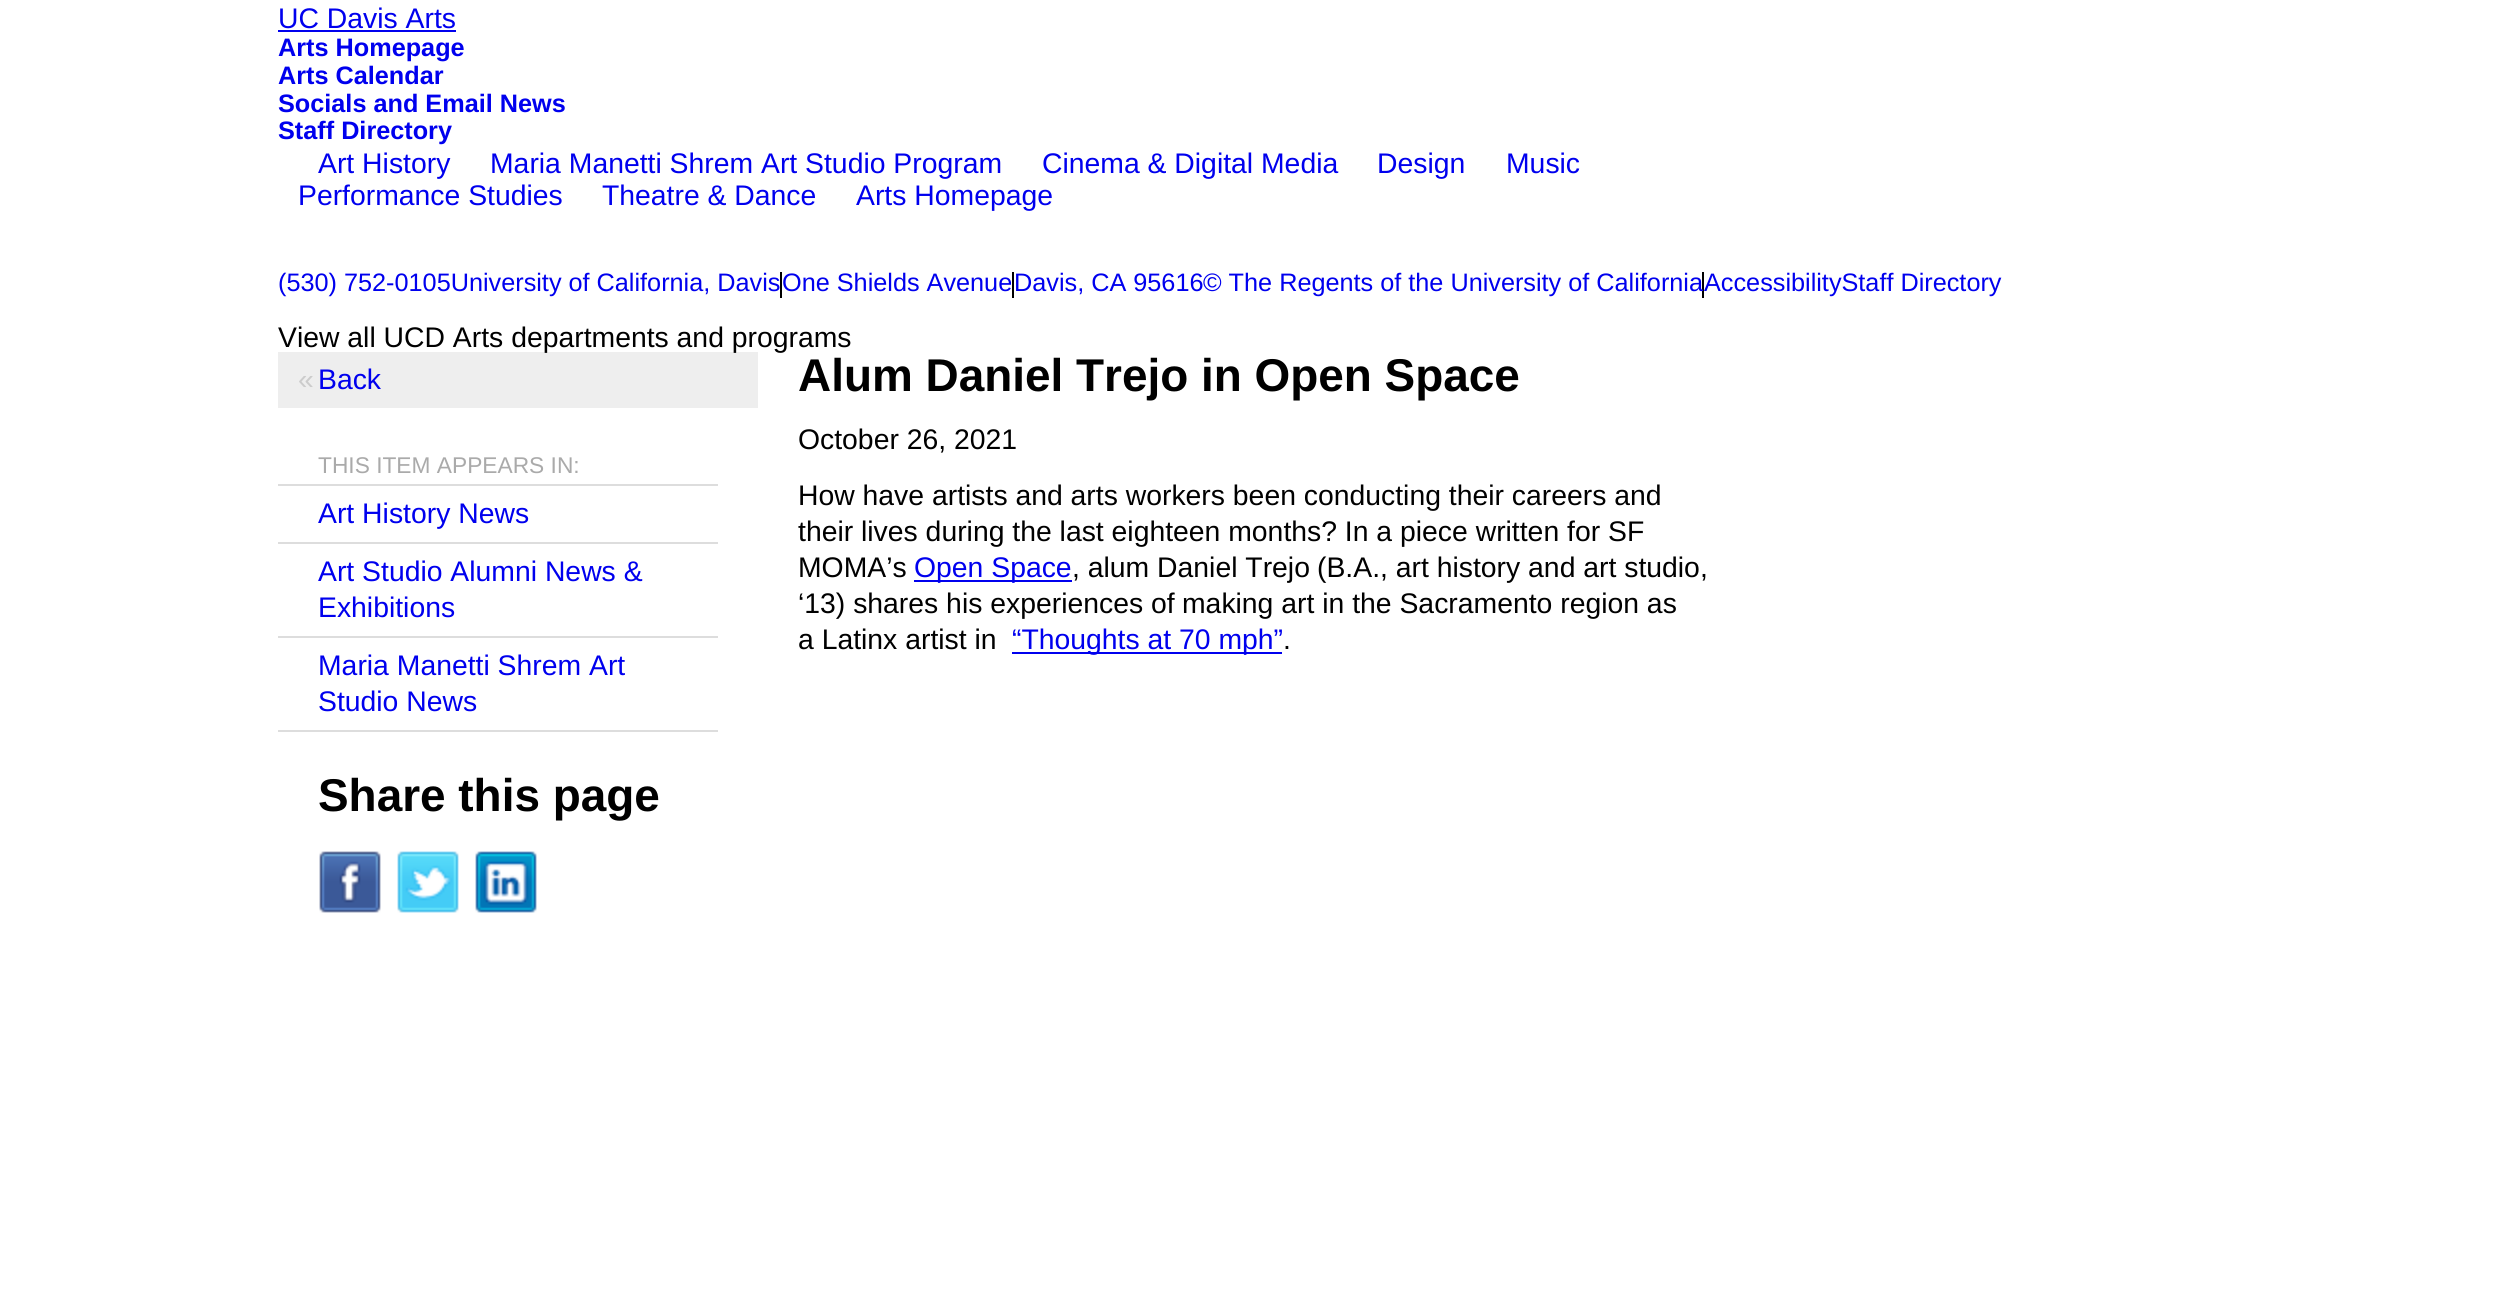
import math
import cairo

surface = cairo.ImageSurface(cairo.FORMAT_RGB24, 2515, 1290)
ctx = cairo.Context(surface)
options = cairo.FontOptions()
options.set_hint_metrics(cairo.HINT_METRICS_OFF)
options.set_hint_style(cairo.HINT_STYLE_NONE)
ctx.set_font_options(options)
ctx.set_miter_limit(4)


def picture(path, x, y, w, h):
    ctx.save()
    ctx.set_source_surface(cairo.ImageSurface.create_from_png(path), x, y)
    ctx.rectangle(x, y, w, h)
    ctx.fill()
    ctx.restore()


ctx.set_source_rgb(1, 1, 1)
ctx.paint()
ctx.select_font_face("Liberation Sans")
ctx.set_font_size(28.35)
ctx.set_source_rgb(0, 0, 0.933)
ctx.move_to(278, 28)
ctx.show_text("UC Davis Arts")
ctx.rectangle(278, 30, 178, 2)
ctx.fill()
ctx.select_font_face("Liberation Sans", cairo.FONT_SLANT_NORMAL, cairo.FONT_WEIGHT_BOLD)
ctx.set_font_size(25.25)
ctx.move_to(278, 56)
ctx.show_text("Arts Homepage")
ctx.move_to(278, 84)
ctx.show_text("Arts Calendar")
ctx.move_to(278, 112)
ctx.show_text("Socials and Email News")
ctx.move_to(278, 139)
ctx.show_text("Staff Directory")
ctx.select_font_face("Liberation Sans")
ctx.set_font_size(28.35)
ctx.move_to(318, 173)
ctx.show_text("Art History")
ctx.move_to(490, 173)
ctx.show_text("Maria Manetti Shrem Art Studio Program")
ctx.move_to(1042, 173)
ctx.show_text("Cinema & Digital Media")
ctx.move_to(1377, 173)
ctx.show_text("Design")
ctx.move_to(1506, 173)
ctx.show_text("Music")
ctx.move_to(298, 205)
ctx.show_text("Performance Studies")
ctx.move_to(602, 205)
ctx.show_text("Theatre & Dance")
ctx.move_to(856, 205)
ctx.show_text("Arts Homepage")
ctx.set_font_size(25.25)
ctx.move_to(278, 291)
ctx.show_text("(530) 752-0105University of California, Davis")
ctx.set_source_rgb(0, 0, 0)
ctx.rectangle(780, 272, 2, 26)
ctx.fill()
ctx.rectangle(1012, 272, 2, 26)
ctx.fill()
ctx.set_source_rgb(0, 0, 0.933)
ctx.move_to(782, 291)
ctx.show_text("One Shields Avenue")
ctx.move_to(1014, 291)
ctx.show_text("Davis, CA 95616")
ctx.set_source_rgb(0, 0, 0)
ctx.rectangle(1702, 272, 2, 26)
ctx.fill()
ctx.set_source_rgb(0, 0, 0.933)
ctx.move_to(1203, 291)
ctx.show_text("© The Regents of the University of California")
ctx.move_to(1704, 291)
ctx.show_text("AccessibilityStaff Directory")
ctx.set_source_rgb(0.933, 0.933, 0.933)
ctx.rectangle(278, 352, 480, 56)
ctx.fill()
ctx.set_font_size(28.35)
ctx.set_source_rgb(0.8, 0.8, 0.8)
ctx.move_to(298, 389)
ctx.show_text("«")
ctx.set_source_rgb(0, 0, 0.933)
ctx.move_to(318, 389)
ctx.show_text("Back")
ctx.set_font_size(22.75)
ctx.set_source_rgb(0.667, 0.667, 0.667)
ctx.move_to(318, 473)
ctx.show_text("THIS ITEM APPEARS IN:")
ctx.set_source_rgb(0.867, 0.867, 0.867)
ctx.rectangle(278, 484, 440, 2)
ctx.fill()
ctx.rectangle(278, 542, 440, 2)
ctx.fill()
ctx.set_font_size(28.35)
ctx.set_source_rgb(0, 0, 0.933)
ctx.move_to(318, 523)
ctx.show_text("Art History News")
ctx.set_source_rgb(0.867, 0.867, 0.867)
ctx.rectangle(278, 636, 440, 2)
ctx.fill()
ctx.set_source_rgb(0, 0, 0.933)
ctx.move_to(318, 581)
ctx.show_text("Art Studio Alumni News &")
ctx.move_to(318, 617)
ctx.show_text("Exhibitions")
ctx.set_source_rgb(0.867, 0.867, 0.867)
ctx.rectangle(278, 730, 440, 2)
ctx.fill()
ctx.set_source_rgb(0, 0, 0.933)
ctx.move_to(318, 675)
ctx.show_text("Maria Manetti Shrem Art")
ctx.move_to(318, 711)
ctx.show_text("Studio News")
ctx.select_font_face("Liberation Sans", cairo.FONT_SLANT_NORMAL, cairo.FONT_WEIGHT_BOLD)
ctx.set_font_size(45.9)
ctx.set_source_rgb(0, 0, 0)
ctx.move_to(318, 811)
ctx.show_text("Share this page")
picture("img1.png", 319, 851, 62, 62)
picture("img2.png", 397, 851, 62, 62)
picture("img3.png", 475, 851, 62, 62)
ctx.move_to(798, 391)
ctx.show_text("Alum Daniel Trejo in Open Space")
ctx.select_font_face("Liberation Sans")
ctx.set_font_size(28.35)
ctx.move_to(798, 449)
ctx.show_text("October 26, 2021")
ctx.move_to(798, 505)
ctx.show_text("How have artists and arts workers been conducting their careers and")
ctx.move_to(798, 541)
ctx.show_text("their lives during the last eighteen months? In a piece written for SF")
ctx.move_to(798, 577)
ctx.show_text("MOMA’s")
ctx.set_source_rgb(0, 0, 0.933)
ctx.rectangle(914, 580, 158, 2)
ctx.fill()
ctx.move_to(914, 577)
ctx.show_text("Open Space")
ctx.set_source_rgb(0, 0, 0)
ctx.move_to(1072, 577)
ctx.show_text(", alum Daniel Trejo")
ctx.move_to(1317, 577)
ctx.show_text("(B.A., art history and art studio,")
ctx.move_to(798, 613)
ctx.show_text("‘13) shares his experiences of")
ctx.move_to(1182, 613)
ctx.show_text("making art in the Sacramento region as")
ctx.move_to(798, 649)
ctx.show_text("a Latinx artist in")
ctx.set_source_rgb(0, 0, 0.933)
ctx.rectangle(1012, 652, 270, 2)
ctx.fill()
ctx.move_to(1012, 649)
ctx.show_text("“Thoughts at 70 mph”")
ctx.set_source_rgb(0, 0, 0)
ctx.move_to(1283, 649)
ctx.show_text(".")
ctx.move_to(278, 347)
ctx.show_text("View all UCD Arts departments and programs")
surface.write_to_png("page.png")
